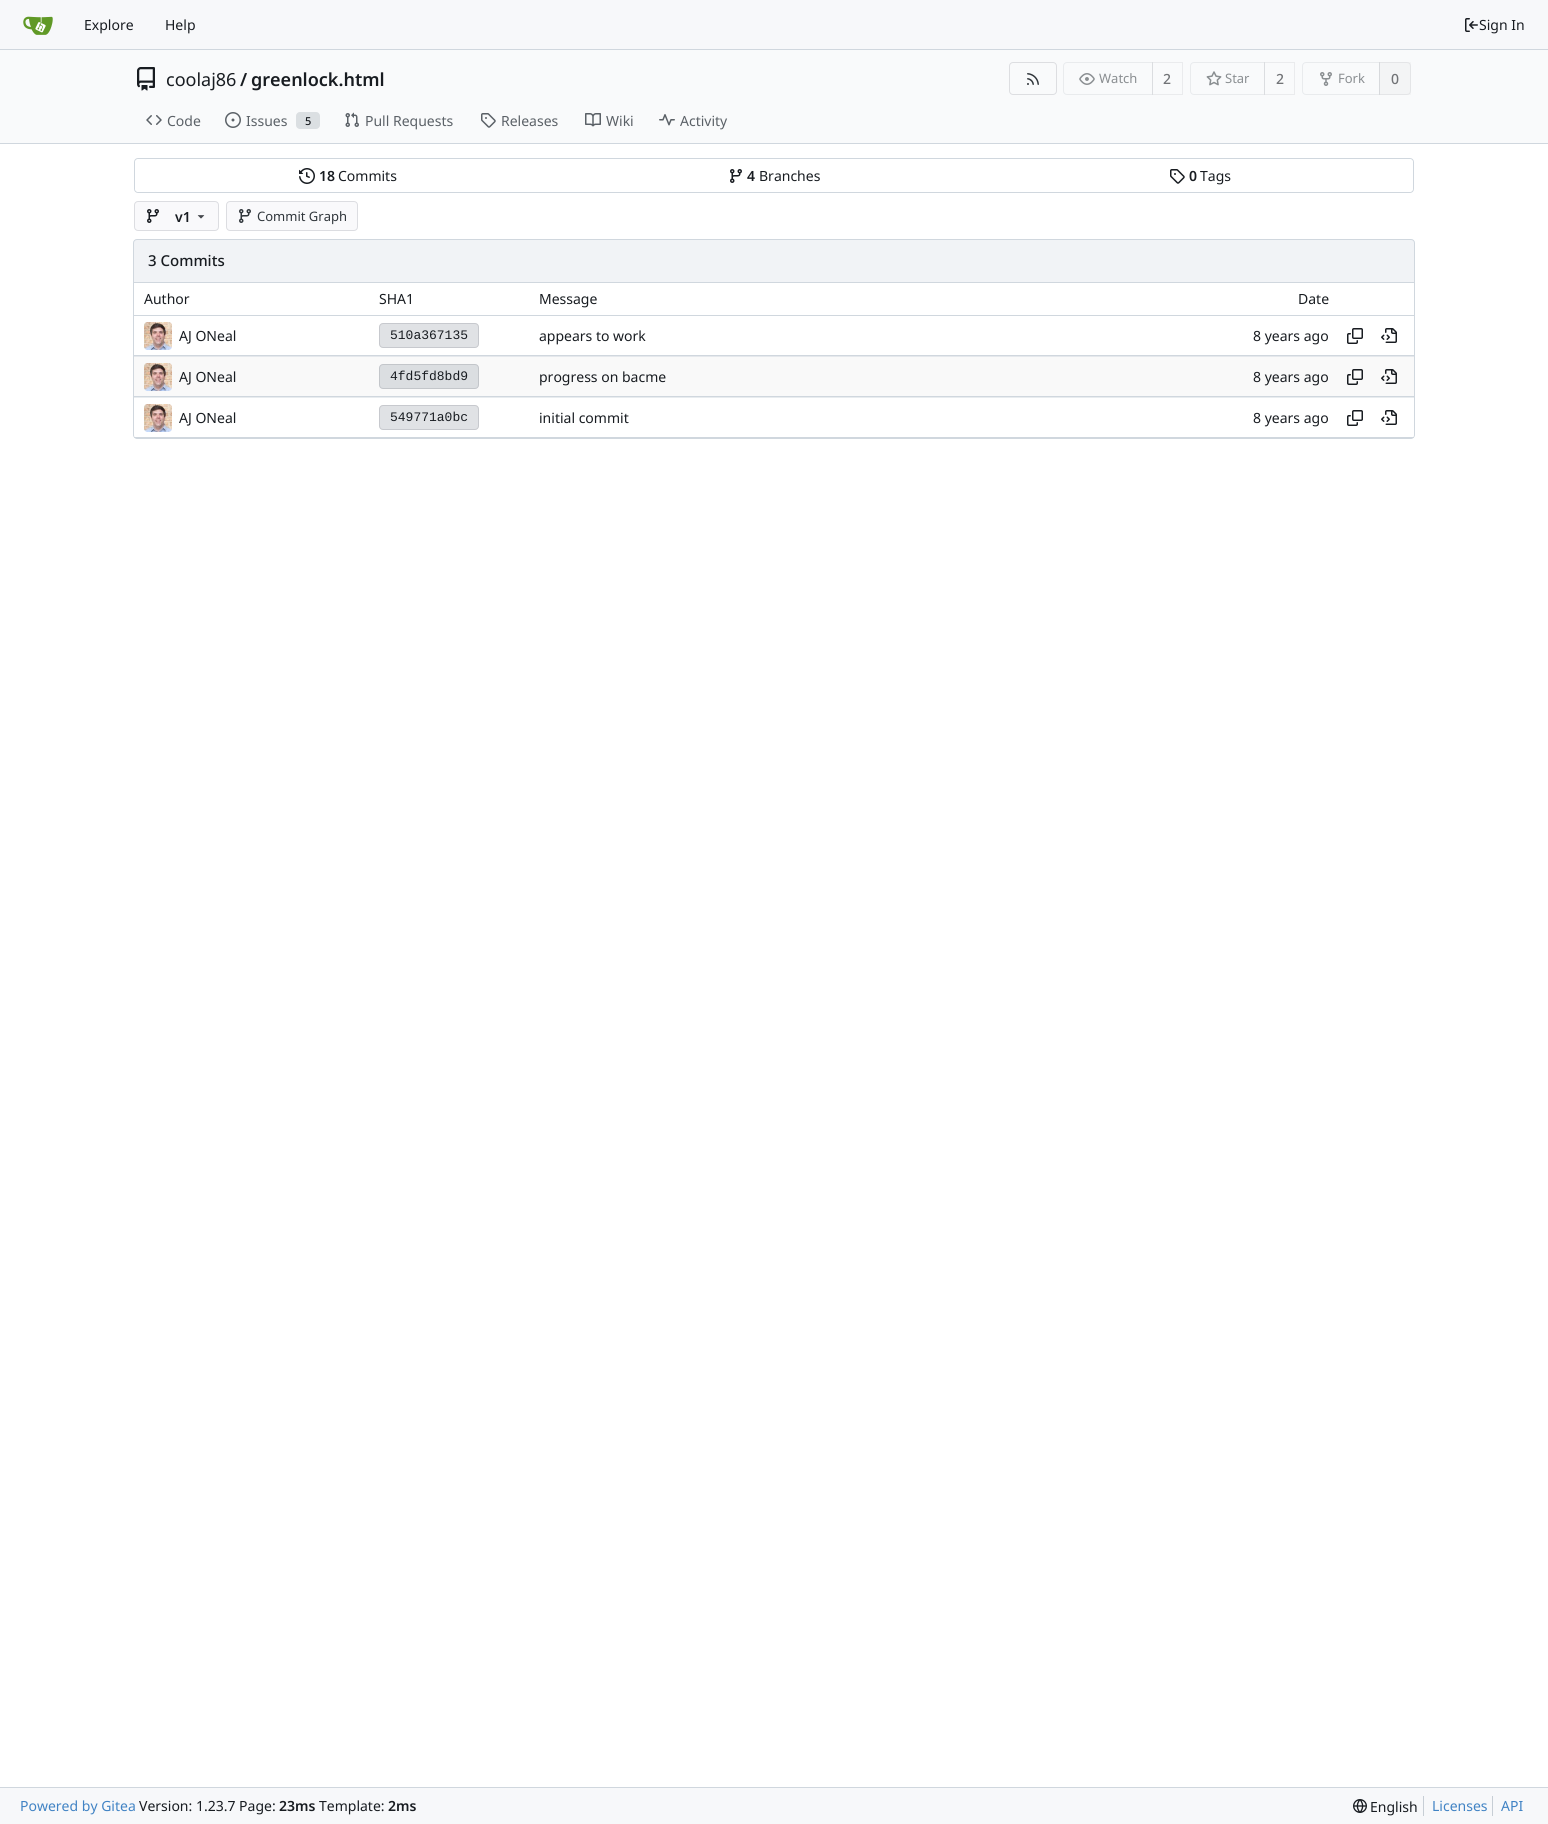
import math
import cairo

surface = cairo.ImageSurface(cairo.FORMAT_RGB24, 1548, 1824)
ctx = cairo.Context(surface)
options = cairo.FontOptions()
options.set_hint_metrics(cairo.HINT_METRICS_OFF)
options.set_hint_style(cairo.HINT_STYLE_NONE)
ctx.set_font_options(options)
ctx.set_miter_limit(4)


def round_rect(x, y, w, h, r):
    ctx.new_sub_path()
    for i, (u, v) in enumerate([(x + w - r, y + h - r), (x + r, y + h - r), (x + r, y + r), (x + w - r, y + r)]):
        ctx.arc(u, v, r, i * math.pi / 2, (i + 1) * math.pi / 2)
    ctx.close_path()


def picture(path, x, y, w, h):
    ctx.save()
    ctx.set_source_surface(cairo.ImageSurface.create_from_png(path), x, y)
    ctx.rectangle(x, y, w, h)
    ctx.fill()
    ctx.restore()


ctx.set_source_rgb(1, 1, 1)
ctx.paint()
ctx.set_source_rgb(0.965, 0.969, 0.98)
ctx.rectangle(0, 0, 1548, 49)
ctx.fill()
ctx.set_source_rgb(0.816, 0.843, 0.871)
ctx.rectangle(0, 49, 1548, 1)
ctx.fill()
picture("img1.png", 23, 16, 30, 19)
ctx.select_font_face("Noto Sans")
ctx.set_font_size(14)
ctx.set_source_rgb(0.094, 0.11, 0.129)
ctx.move_to(84, 30)
ctx.show_text("Explore")
ctx.move_to(165, 30)
ctx.show_text("Help")
picture("img2.png", 1465, 18, 13, 14)
ctx.move_to(1479, 30)
ctx.show_text("Sign In")
ctx.set_source_rgb(0.976, 0.98, 0.984)
ctx.rectangle(0, 50, 1548, 93)
ctx.fill()
picture("img3.png", 137, 67, 18, 24)
ctx.set_font_size(18)
ctx.set_source_rgb(0.094, 0.11, 0.129)
ctx.move_to(166, 86)
ctx.show_text("coolaj86")
ctx.select_font_face("Noto Sans SemiBold")
ctx.move_to(240, 86)
ctx.show_text("/")
ctx.move_to(251, 86)
ctx.show_text("greenlock.html")
round_rect(1009.5, 62.5, 47, 32, 3.5)
ctx.set_source_rgb(0.867, 0.871, 0.882)
ctx.set_line_width(1)
ctx.stroke()
picture("img4.png", 1027, 73, 12, 12)
ctx.new_path()
ctx.move_to(1067, 62.5)
ctx.line_to(1152.5, 62.5)
ctx.line_to(1152.5, 94.5)
ctx.line_to(1067, 94.5)
ctx.curve_to(1065, 94.5, 1063.5, 93, 1063.5, 91)
ctx.line_to(1063.5, 66)
ctx.curve_to(1063.5, 64, 1065, 62.5, 1067, 62.5)
ctx.close_path()
ctx.set_source_rgb(0.914, 0.918, 0.929)
ctx.stroke()
picture("img5.png", 1079, 73, 16, 12)
ctx.select_font_face("Noto Sans")
ctx.set_font_size(13)
ctx.set_source_rgb(0.541, 0.557, 0.569)
ctx.move_to(1099, 83)
ctx.show_text("Watch")
ctx.rectangle(1152.5, 62.5, 30, 32)
ctx.set_source_rgba(0, 0, 0.09, 0.06)
ctx.stroke()
ctx.select_font_face("Noto Sans Medium")
ctx.set_font_size(14)
ctx.set_source_rgb(0.443, 0.451, 0.463)
ctx.move_to(1163, 84)
ctx.show_text("2")
ctx.new_path()
ctx.move_to(1194, 62.5)
ctx.line_to(1264.5, 62.5)
ctx.line_to(1264.5, 94.5)
ctx.line_to(1194, 94.5)
ctx.curve_to(1192, 94.5, 1190.5, 93, 1190.5, 91)
ctx.line_to(1190.5, 66)
ctx.curve_to(1190.5, 64, 1192, 62.5, 1194, 62.5)
ctx.close_path()
ctx.set_source_rgb(0.914, 0.918, 0.929)
ctx.stroke()
picture("img6.png", 1206, 71, 16, 15)
ctx.select_font_face("Noto Sans")
ctx.set_font_size(13)
ctx.set_source_rgb(0.541, 0.557, 0.569)
ctx.move_to(1225, 83)
ctx.show_text("Star")
ctx.rectangle(1264.5, 62.5, 30, 32)
ctx.set_source_rgba(0, 0, 0.09, 0.06)
ctx.stroke()
ctx.select_font_face("Noto Sans Medium")
ctx.set_font_size(14)
ctx.set_source_rgb(0.443, 0.451, 0.463)
ctx.move_to(1276, 84)
ctx.show_text("2")
ctx.new_path()
ctx.move_to(1306, 62.5)
ctx.line_to(1379.5, 62.5)
ctx.line_to(1379.5, 94.5)
ctx.line_to(1306, 94.5)
ctx.curve_to(1304, 94.5, 1302.5, 93, 1302.5, 91)
ctx.line_to(1302.5, 66)
ctx.curve_to(1302.5, 64, 1304, 62.5, 1306, 62.5)
ctx.close_path()
ctx.set_source_rgb(0.914, 0.918, 0.929)
ctx.stroke()
picture("img7.png", 1320, 72, 12, 14)
ctx.select_font_face("Noto Sans")
ctx.set_font_size(13)
ctx.set_source_rgb(0.541, 0.557, 0.569)
ctx.move_to(1338, 83)
ctx.show_text("Fork")
ctx.set_source_rgba(0.439, 0.443, 0.443, 0.04)
ctx.rectangle(1379, 62, 32, 33)
ctx.fill()
ctx.new_path()
ctx.move_to(1379.5, 62.5)
ctx.line_to(1407, 62.5)
ctx.curve_to(1409, 62.5, 1410.5, 64, 1410.5, 66)
ctx.line_to(1410.5, 91)
ctx.curve_to(1410.5, 93, 1409, 94.5, 1407, 94.5)
ctx.line_to(1379.5, 94.5)
ctx.close_path()
ctx.set_source_rgba(0.439, 0.443, 0.494, 0.11)
ctx.stroke()
ctx.select_font_face("Noto Sans Medium")
ctx.set_font_size(14)
ctx.set_source_rgb(0.443, 0.451, 0.463)
ctx.move_to(1391, 84)
ctx.show_text("0")
picture("img8.png", 146, 115, 16, 10)
ctx.select_font_face("Noto Sans")
ctx.set_source_rgb(0.357, 0.38, 0.404)
ctx.move_to(167, 126)
ctx.show_text("Code")
picture("img9.png", 225, 112, 16, 16)
ctx.move_to(246, 126)
ctx.show_text("Issues")
ctx.set_source_rgb(0.859, 0.875, 0.886)
round_rect(296, 112, 24, 17, 4)
ctx.fill()
ctx.select_font_face("Noto Sans Medium")
ctx.set_font_size(11)
ctx.set_source_rgb(0.094, 0.11, 0.129)
ctx.move_to(305, 125)
ctx.show_text("5")
picture("img10.png", 345, 112, 14, 15)
ctx.select_font_face("Noto Sans")
ctx.set_font_size(14)
ctx.set_source_rgb(0.357, 0.38, 0.404)
ctx.move_to(365, 126)
ctx.show_text("Pull Requests")
picture("img11.png", 481, 113, 15, 15)
ctx.move_to(501, 126)
ctx.show_text("Releases")
picture("img12.png", 585, 113, 16, 14)
ctx.move_to(606, 126)
ctx.show_text("Wiki")
picture("img13.png", 659, 114, 16, 12)
ctx.move_to(680, 126)
ctx.show_text("Activity")
ctx.set_source_rgb(0.816, 0.843, 0.871)
ctx.rectangle(0, 143, 1548, 1)
ctx.fill()
round_rect(134.5, 158.5, 1279, 34, 3.5)
ctx.stroke()
ctx.set_source_rgb(1, 1, 1)
round_rect(135, 159, 1278, 33, 4)
ctx.fill()
picture("img14.png", 299, 168, 16, 16)
ctx.select_font_face("Noto Sans SemiBold")
ctx.set_source_rgb(0.094, 0.11, 0.129)
ctx.move_to(319, 181)
ctx.show_text("18")
ctx.select_font_face("Noto Sans")
ctx.move_to(338, 181)
ctx.show_text("Commits")
picture("img15.png", 730, 169, 12, 14)
ctx.select_font_face("Noto Sans SemiBold")
ctx.move_to(747, 181)
ctx.show_text("4")
ctx.select_font_face("Noto Sans")
ctx.move_to(759, 181)
ctx.show_text("Branches")
picture("img16.png", 1170, 169, 15, 15)
ctx.select_font_face("Noto Sans SemiBold")
ctx.move_to(1189, 181)
ctx.show_text("0")
ctx.select_font_face("Noto Sans")
ctx.move_to(1200, 181)
ctx.show_text("Tags")
ctx.set_source_rgb(0.973, 0.976, 0.984)
round_rect(134.5, 201.5, 84, 29, 3.5)
ctx.fill_preserve()
ctx.set_source_rgb(0.863, 0.867, 0.882)
ctx.stroke()
picture("img17.png", 147, 209, 12, 14)
ctx.select_font_face("Noto Sans SemiBold")
ctx.set_source_rgb(0.094, 0.11, 0.129)
ctx.move_to(175, 222)
ctx.show_text("v1")
picture("img18.png", 197, 215, 8, 4)
ctx.set_source_rgb(0.973, 0.976, 0.984)
round_rect(226.5, 201.5, 131, 29, 3.5)
ctx.fill_preserve()
ctx.set_source_rgb(0.863, 0.867, 0.882)
ctx.stroke()
picture("img19.png", 239, 209, 12, 14)
ctx.select_font_face("Noto Sans")
ctx.set_font_size(13)
ctx.set_source_rgb(0.188, 0.212, 0.231)
ctx.move_to(257, 221)
ctx.show_text("Commit Graph")
ctx.set_source_rgb(0.945, 0.953, 0.961)
ctx.new_path()
ctx.move_to(137, 239.5)
ctx.line_to(1411, 239.5)
ctx.curve_to(1413, 239.5, 1414.5, 241, 1414.5, 243)
ctx.line_to(1414.5, 282.5)
ctx.line_to(133.5, 282.5)
ctx.line_to(133.5, 243)
ctx.curve_to(133.5, 241, 135, 239.5, 137, 239.5)
ctx.close_path()
ctx.fill_preserve()
ctx.set_source_rgb(0.816, 0.843, 0.871)
ctx.stroke()
ctx.select_font_face("Noto Sans Medium")
ctx.set_font_size(15)
ctx.set_source_rgb(0.094, 0.11, 0.129)
ctx.move_to(148, 266)
ctx.show_text("3 Commits")
ctx.set_source_rgb(0.816, 0.843, 0.871)
ctx.set_fill_rule(cairo.FILL_RULE_EVEN_ODD)
ctx.new_path()
ctx.move_to(133, 283)
ctx.line_to(1415, 283)
ctx.line_to(1415, 435)
ctx.curve_to(1415, 437, 1413, 439, 1411, 439)
ctx.line_to(137, 439)
ctx.curve_to(135, 439, 133, 437, 133, 435)
ctx.close_path()
ctx.move_to(134, 283)
ctx.line_to(1414, 283)
ctx.line_to(1414, 435)
ctx.curve_to(1414, 437, 1413, 438, 1411, 438)
ctx.line_to(137, 438)
ctx.curve_to(135, 438, 134, 437, 134, 435)
ctx.close_path()
ctx.fill()
ctx.rectangle(134, 315, 1280, 1)
ctx.fill()
ctx.select_font_face("Noto Sans")
ctx.set_font_size(14)
ctx.set_source_rgb(0.094, 0.11, 0.129)
ctx.move_to(144, 304)
ctx.show_text("Author")
ctx.move_to(379, 304)
ctx.show_text("SHA1")
ctx.move_to(539, 304)
ctx.show_text("Message")
ctx.move_to(1298, 304)
ctx.show_text("Date")
ctx.set_source_rgb(0.816, 0.843, 0.871)
ctx.rectangle(134, 355, 1280, 1)
ctx.fill()
picture("img20.png", 144, 322, 28, 28)
ctx.set_source_rgb(0.094, 0.11, 0.129)
ctx.move_to(179, 341)
ctx.show_text("AJ ONeal")
ctx.set_source_rgb(0.878, 0.886, 0.898)
round_rect(379, 323, 100, 25, 4)
ctx.fill()
round_rect(379.5, 323.5, 99, 24, 3.5)
ctx.set_source_rgba(0, 0, 0.09, 0.11)
ctx.stroke()
ctx.select_font_face("Liberation Mono")
ctx.set_font_size(13)
ctx.set_source_rgb(0.094, 0.11, 0.129)
ctx.move_to(390, 339)
ctx.show_text("510a367135")
ctx.select_font_face("Noto Sans")
ctx.set_font_size(14)
ctx.move_to(539, 341)
ctx.show_text("appears to work")
ctx.move_to(1253, 341)
ctx.show_text("8 years ago")
picture("img21.png", 1347, 328, 16, 16)
picture("img22.png", 1381, 328, 16, 15)
ctx.set_source_rgb(0.976, 0.976, 0.976)
ctx.rectangle(134, 357, 1280, 39)
ctx.fill()
ctx.set_source_rgb(0.816, 0.843, 0.871)
ctx.rectangle(134, 396, 1280, 1)
ctx.fill()
ctx.set_source_rgb(0.898, 0.91, 0.925)
ctx.rectangle(134, 356, 1280, 1)
ctx.fill()
picture("img23.png", 144, 363, 28, 28)
ctx.set_source_rgb(0.094, 0.11, 0.129)
ctx.move_to(179, 382)
ctx.show_text("AJ ONeal")
ctx.set_source_rgb(0.859, 0.871, 0.882)
round_rect(379, 364, 100, 25, 4)
ctx.fill()
round_rect(379.5, 364.5, 99, 24, 3.5)
ctx.set_source_rgba(0, 0, 0.09, 0.11)
ctx.stroke()
ctx.select_font_face("Liberation Mono")
ctx.set_font_size(13)
ctx.set_source_rgb(0.094, 0.11, 0.129)
ctx.move_to(390, 380)
ctx.show_text("4fd5fd8bd9")
ctx.select_font_face("Noto Sans")
ctx.set_font_size(14)
ctx.move_to(539, 382)
ctx.show_text("progress on bacme")
ctx.move_to(1253, 382)
ctx.show_text("8 years ago")
picture("img24.png", 1347, 369, 16, 16)
picture("img25.png", 1381, 369, 16, 15)
ctx.set_source_rgb(0.816, 0.843, 0.871)
ctx.rectangle(134, 437, 1280, 1)
ctx.fill()
ctx.set_source_rgb(0.91, 0.922, 0.937)
ctx.rectangle(134, 397, 1280, 1)
ctx.fill()
picture("img20.png", 144, 404, 28, 28)
ctx.set_source_rgb(0.094, 0.11, 0.129)
ctx.move_to(179, 423)
ctx.show_text("AJ ONeal")
ctx.set_source_rgb(0.878, 0.886, 0.898)
round_rect(379, 405, 100, 25, 4)
ctx.fill()
round_rect(379.5, 405.5, 99, 24, 3.5)
ctx.set_source_rgba(0, 0, 0.09, 0.11)
ctx.stroke()
ctx.select_font_face("Liberation Mono")
ctx.set_font_size(13)
ctx.set_source_rgb(0.094, 0.11, 0.129)
ctx.move_to(390, 421)
ctx.show_text("549771a0bc")
ctx.select_font_face("Noto Sans")
ctx.set_font_size(14)
ctx.move_to(539, 423)
ctx.show_text("initial commit")
ctx.move_to(1253, 423)
ctx.show_text("8 years ago")
picture("img21.png", 1347, 410, 16, 16)
picture("img22.png", 1381, 410, 16, 15)
ctx.set_source_rgb(0.965, 0.969, 0.98)
ctx.rectangle(0, 1788, 1548, 36)
ctx.fill()
ctx.set_source_rgb(0.816, 0.843, 0.871)
ctx.rectangle(0, 1787, 1548, 1)
ctx.fill()
ctx.set_source_rgb(0.255, 0.514, 0.769)
ctx.move_to(20, 1811)
ctx.show_text("Powered by Gitea")
ctx.set_source_rgb(0.094, 0.11, 0.129)
ctx.move_to(139, 1811)
ctx.show_text("Version: 1.23.7 Page:")
ctx.select_font_face("Noto Sans SemiBold")
ctx.move_to(279, 1811)
ctx.show_text("23ms")
ctx.select_font_face("Noto Sans")
ctx.move_to(319, 1811)
ctx.show_text("Template:")
ctx.select_font_face("Noto Sans SemiBold")
ctx.move_to(388, 1811)
ctx.show_text("2ms")
picture("img26.png", 1353, 1799, 14, 14)
ctx.select_font_face("Noto Sans")
ctx.move_to(1370, 1812)
ctx.show_text("English")
ctx.set_source_rgb(0.78, 0.808, 0.835)
ctx.rectangle(1423, 1796, 1, 20)
ctx.fill()
ctx.set_source_rgb(0.255, 0.514, 0.769)
ctx.move_to(1432, 1811)
ctx.show_text("Licenses")
ctx.set_source_rgb(0.78, 0.808, 0.835)
ctx.rectangle(1492, 1796, 1, 20)
ctx.fill()
ctx.set_source_rgb(0.255, 0.514, 0.769)
ctx.move_to(1501, 1811)
ctx.show_text("API")
surface.write_to_png("page.png")
